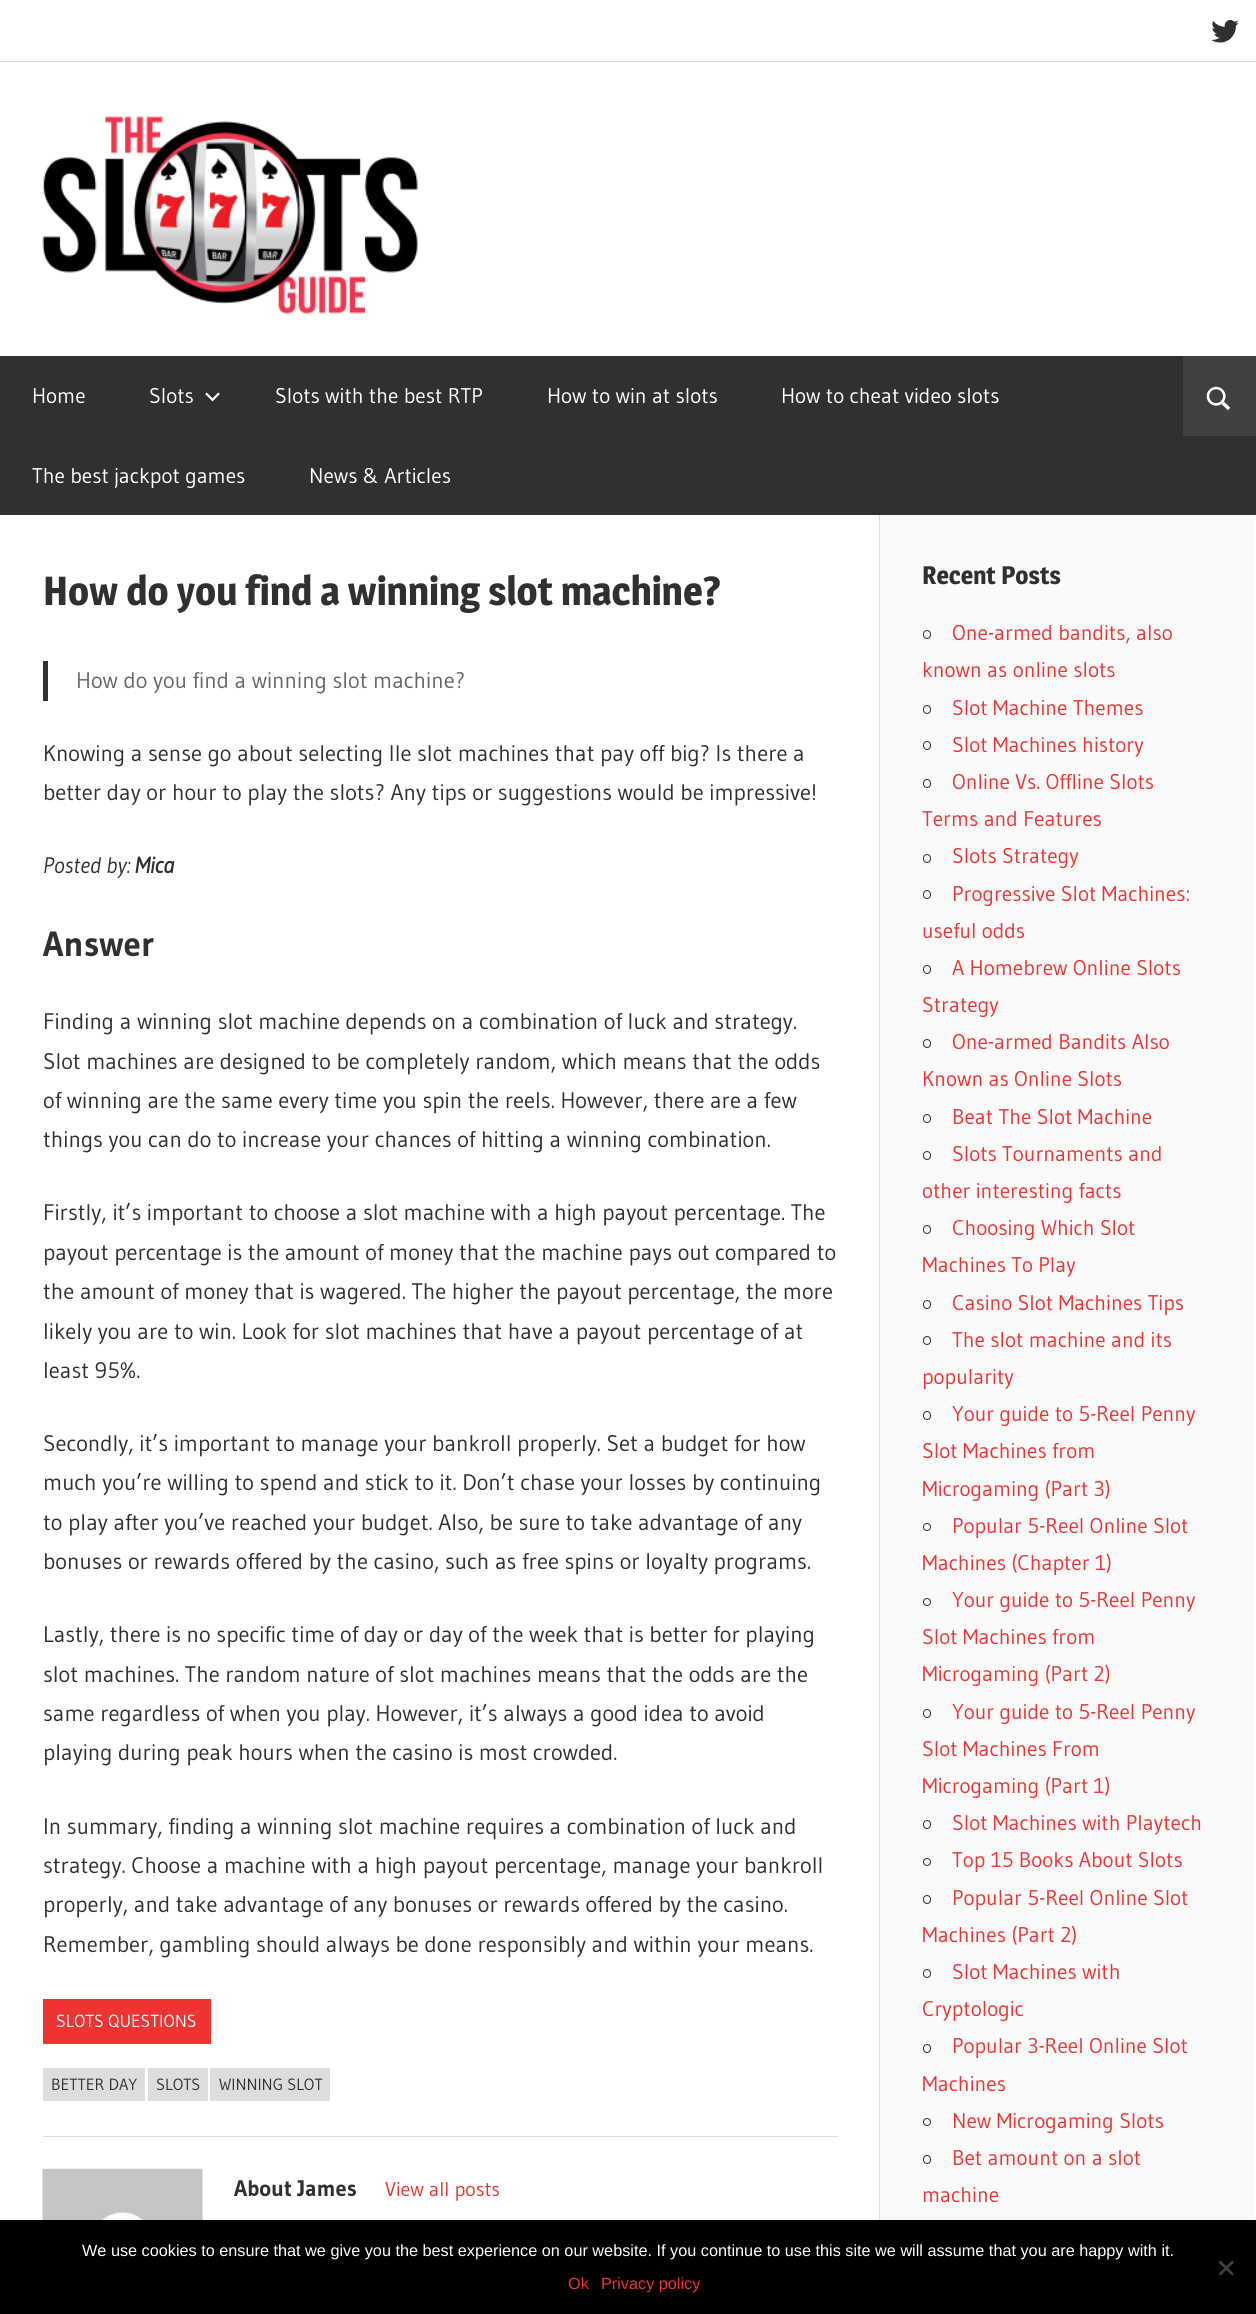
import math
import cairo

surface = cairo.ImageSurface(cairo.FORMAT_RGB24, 1256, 2314)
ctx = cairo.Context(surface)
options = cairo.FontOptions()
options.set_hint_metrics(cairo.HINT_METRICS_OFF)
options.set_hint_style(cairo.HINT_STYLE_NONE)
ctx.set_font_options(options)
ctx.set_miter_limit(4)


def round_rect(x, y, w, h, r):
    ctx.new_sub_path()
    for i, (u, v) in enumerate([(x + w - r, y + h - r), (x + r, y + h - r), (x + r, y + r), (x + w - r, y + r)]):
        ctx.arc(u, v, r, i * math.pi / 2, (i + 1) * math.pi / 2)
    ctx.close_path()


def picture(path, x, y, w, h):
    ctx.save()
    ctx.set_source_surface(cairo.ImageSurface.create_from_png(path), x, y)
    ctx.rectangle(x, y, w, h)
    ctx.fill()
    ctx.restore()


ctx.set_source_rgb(1, 1, 1)
ctx.paint()
ctx.set_source_rgb(0.851, 0.851, 0.851)
ctx.rectangle(0, 61, 1256, 1)
ctx.fill()
picture("img1.png", 1211, 20, 28, 23)
picture("img2.png", 42, 116, 376, 198)
ctx.set_source_rgb(0.188, 0.188, 0.188)
ctx.rectangle(0, 356, 1256, 159)
ctx.fill()
ctx.select_font_face("Gudea")
ctx.set_font_size(21.25)
ctx.set_source_rgb(1, 1, 1)
ctx.move_to(32, 403)
ctx.show_text("Home")
ctx.move_to(149, 403)
ctx.show_text("Slots")
picture("img3.png", 205, 392, 15, 10)
ctx.move_to(275, 403)
ctx.show_text("Slots with the best RTP")
ctx.move_to(547, 403)
ctx.show_text("How to win at slots")
ctx.move_to(781, 403)
ctx.show_text("How to cheat video slots")
ctx.move_to(32, 483)
ctx.show_text("The best jackpot games")
ctx.move_to(309, 483)
ctx.show_text("News & Articles")
ctx.set_source_rgb(0.251, 0.251, 0.251)
ctx.rectangle(1183, 356, 73, 80)
ctx.fill()
picture("img4.png", 1206, 386, 25, 25)
ctx.select_font_face("Magra", cairo.FONT_SLANT_NORMAL, cairo.FONT_WEIGHT_BOLD)
ctx.set_font_size(40)
ctx.set_source_rgb(0.188, 0.188, 0.188)
ctx.move_to(43, 605)
ctx.show_text("How do you find a winning slot machine?")
ctx.rectangle(43, 661, 5, 40)
ctx.fill()
ctx.select_font_face("Gudea")
ctx.set_font_size(22.5)
ctx.set_source_rgb(0.4, 0.4, 0.4)
ctx.move_to(76, 688)
ctx.show_text("How do you find a winning slot machine?")
ctx.set_source_rgb(0.188, 0.188, 0.188)
ctx.move_to(43, 761)
ctx.show_text("Knowing a sense go about selecting lle slot machines that pay off big? Is there a")
ctx.move_to(43, 800)
ctx.show_text("better day or hour to play the slots? Any tips or suggestions would be impressive!")
ctx.select_font_face("Gudea", cairo.FONT_SLANT_ITALIC)
ctx.move_to(43, 873)
ctx.show_text("Posted by:")
ctx.select_font_face("Gudea", cairo.FONT_SLANT_ITALIC, cairo.FONT_WEIGHT_BOLD)
ctx.move_to(135, 873)
ctx.show_text("Mica")
ctx.select_font_face("Gudea", cairo.FONT_SLANT_NORMAL, cairo.FONT_WEIGHT_BOLD)
ctx.set_font_size(35)
ctx.move_to(43, 956)
ctx.show_text("Answer")
ctx.select_font_face("Gudea")
ctx.set_font_size(22.5)
ctx.move_to(43, 1029)
ctx.show_text("Finding a winning slot machine depends on a combination of luck and strategy.")
ctx.move_to(43, 1069)
ctx.show_text("Slot machines are designed to be completely random, which means that the odds")
ctx.move_to(43, 1108)
ctx.show_text("of winning are the same every time you spin the reels. However, there are a few")
ctx.move_to(43, 1147)
ctx.show_text("things you can do to increase your chances of hitting a winning combination.")
ctx.move_to(43, 1220)
ctx.show_text("Firstly, it’s important to choose a slot machine with a high payout percentage. The")
ctx.move_to(43, 1260)
ctx.show_text("payout percentage is the amount of money that the machine pays out compared to")
ctx.move_to(43, 1299)
ctx.show_text("the amount of money that is wagered. The higher the payout percentage, the more")
ctx.move_to(43, 1339)
ctx.show_text("likely you are to win. Look for slot machines that have a payout percentage of at")
ctx.move_to(43, 1378)
ctx.show_text("least 95%.")
ctx.move_to(43, 1451)
ctx.show_text("Secondly, it’s important to manage your bankroll properly. Set a budget for how")
ctx.move_to(43, 1490)
ctx.show_text("much you’re willing to spend and stick to it. Don’t chase your losses by continuing")
ctx.move_to(43, 1530)
ctx.show_text("to play after you’ve reached your budget. Also, be sure to take advantage of any")
ctx.move_to(43, 1569)
ctx.show_text("bonuses or rewards offered by the casino, such as free spins or loyalty programs.")
ctx.move_to(43, 1642)
ctx.show_text("Lastly, there is no specific time of day or day of the week that is better for playing")
ctx.move_to(43, 1682)
ctx.show_text("slot machines. The random nature of slot machines means that the odds are the")
ctx.move_to(43, 1721)
ctx.show_text("same regardless of when you play. However, it’s always a good idea to avoid")
ctx.move_to(43, 1760)
ctx.show_text("playing during peak hours when the casino is most crowded.")
ctx.move_to(43, 1834)
ctx.show_text("In summary, finding a winning slot machine requires a combination of luck and")
ctx.move_to(43, 1873)
ctx.show_text("strategy. Choose a machine with a high payout percentage, manage your bankroll")
ctx.move_to(43, 1912)
ctx.show_text("properly, and take advantage of any bonuses or rewards offered by the casino.")
ctx.move_to(43, 1952)
ctx.show_text("Remember, gambling should always be done responsibly and within your means.")
ctx.set_source_rgb(0.933, 0.2, 0.2)
ctx.rectangle(43, 1999, 168, 45)
ctx.fill()
ctx.set_font_size(17.5)
ctx.set_source_rgb(1, 1, 1)
ctx.move_to(56, 2027)
ctx.show_text("SLOTS QUESTIONS")
ctx.set_source_rgb(0.867, 0.867, 0.867)
ctx.rectangle(43, 2068, 102, 33)
ctx.fill()
ctx.set_font_size(16.25)
ctx.set_source_rgb(0.188, 0.188, 0.188)
ctx.move_to(51, 2090)
ctx.show_text("BETTER DAY")
ctx.set_source_rgb(0.867, 0.867, 0.867)
ctx.rectangle(148, 2068, 60, 33)
ctx.fill()
ctx.set_source_rgb(0.188, 0.188, 0.188)
ctx.move_to(156, 2090)
ctx.show_text("SLOTS")
ctx.set_source_rgb(0.867, 0.867, 0.867)
ctx.rectangle(210, 2068, 120, 33)
ctx.fill()
ctx.set_source_rgb(0.188, 0.188, 0.188)
ctx.move_to(219, 2090)
ctx.show_text("WINNING SLOT")
ctx.set_source_rgb(0.867, 0.867, 0.867)
ctx.rectangle(43, 2136, 795, 1)
ctx.fill()
picture("img5.png", 42, 2168, 161, 52)
ctx.select_font_face("Gudea", cairo.FONT_SLANT_NORMAL, cairo.FONT_WEIGHT_BOLD)
ctx.set_font_size(22.5)
ctx.set_source_rgb(0.188, 0.188, 0.188)
ctx.move_to(234, 2196)
ctx.show_text("About James")
ctx.select_font_face("Gudea")
ctx.set_font_size(20)
ctx.set_source_rgb(0.933, 0.2, 0.2)
ctx.move_to(385, 2196)
ctx.show_text("View all posts")
ctx.set_source_rgb(0.98, 0.98, 0.98)
ctx.rectangle(880, 515, 375, 1705)
ctx.fill()
ctx.set_source_rgb(0.867, 0.867, 0.867)
ctx.rectangle(879, 515, 1, 1705)
ctx.fill()
ctx.select_font_face("Magra", cairo.FONT_SLANT_NORMAL, cairo.FONT_WEIGHT_BOLD)
ctx.set_font_size(25)
ctx.set_source_rgb(0.188, 0.188, 0.188)
ctx.move_to(922, 584)
ctx.show_text("Recent Posts")
round_rect(923.5, 630.5, 7, 8, 3.5)
ctx.set_line_width(1)
ctx.stroke()
ctx.select_font_face("Gudea")
ctx.set_font_size(21.25)
ctx.set_source_rgb(0.933, 0.2, 0.2)
ctx.move_to(952, 640)
ctx.show_text("One-armed bandits, also")
ctx.move_to(922, 677)
ctx.show_text("known as online slots")
round_rect(923.5, 705.5, 7, 8, 3.5)
ctx.set_source_rgb(0.188, 0.188, 0.188)
ctx.stroke()
ctx.set_source_rgb(0.933, 0.2, 0.2)
ctx.move_to(952, 715)
ctx.show_text("Slot Machine Themes")
round_rect(923.5, 741.5, 7, 8, 3.5)
ctx.set_source_rgb(0.188, 0.188, 0.188)
ctx.stroke()
ctx.set_source_rgb(0.933, 0.2, 0.2)
ctx.move_to(952, 752)
ctx.show_text("Slot Machines history")
round_rect(923.5, 779.5, 7, 8, 3.5)
ctx.set_source_rgb(0.188, 0.188, 0.188)
ctx.stroke()
ctx.set_source_rgb(0.933, 0.2, 0.2)
ctx.move_to(952, 789)
ctx.show_text("Online Vs. Offline Slots")
ctx.move_to(922, 826)
ctx.show_text("Terms and Features")
round_rect(923.5, 854.5, 7, 8, 3.5)
ctx.set_source_rgb(0.188, 0.188, 0.188)
ctx.stroke()
ctx.set_source_rgb(0.933, 0.2, 0.2)
ctx.move_to(952, 863)
ctx.show_text("Slots Strategy")
round_rect(923.5, 890.5, 7, 8, 3.5)
ctx.set_source_rgb(0.188, 0.188, 0.188)
ctx.stroke()
ctx.set_source_rgb(0.933, 0.2, 0.2)
ctx.move_to(952, 901)
ctx.show_text("Progressive Slot Machines:")
ctx.move_to(922, 938)
ctx.show_text("useful odds")
round_rect(923.5, 965.5, 7, 8, 3.5)
ctx.set_source_rgb(0.188, 0.188, 0.188)
ctx.stroke()
ctx.set_source_rgb(0.933, 0.2, 0.2)
ctx.move_to(952, 975)
ctx.show_text("A Homebrew Online Slots")
ctx.move_to(922, 1012)
ctx.show_text("Strategy")
round_rect(923.5, 1039.5, 7, 8, 3.5)
ctx.set_source_rgb(0.188, 0.188, 0.188)
ctx.stroke()
ctx.set_source_rgb(0.933, 0.2, 0.2)
ctx.move_to(952, 1049)
ctx.show_text("One-armed Bandits Also")
ctx.move_to(922, 1086)
ctx.show_text("Known as Online Slots")
round_rect(923.5, 1114.5, 7, 8, 3.5)
ctx.set_source_rgb(0.188, 0.188, 0.188)
ctx.stroke()
ctx.set_source_rgb(0.933, 0.2, 0.2)
ctx.move_to(952, 1124)
ctx.show_text("Beat The Slot Machine")
round_rect(923.5, 1151.5, 7, 8, 3.5)
ctx.set_source_rgb(0.188, 0.188, 0.188)
ctx.stroke()
ctx.set_source_rgb(0.933, 0.2, 0.2)
ctx.move_to(952, 1161)
ctx.show_text("Slots Tournaments and")
ctx.move_to(922, 1198)
ctx.show_text("other interesting facts")
round_rect(923.5, 1225.5, 7, 8, 3.5)
ctx.set_source_rgb(0.188, 0.188, 0.188)
ctx.stroke()
ctx.set_source_rgb(0.933, 0.2, 0.2)
ctx.move_to(952, 1235)
ctx.show_text("Choosing Which Slot")
ctx.move_to(922, 1272)
ctx.show_text("Machines To Play")
round_rect(923.5, 1300.5, 7, 8, 3.5)
ctx.set_source_rgb(0.188, 0.188, 0.188)
ctx.stroke()
ctx.set_source_rgb(0.933, 0.2, 0.2)
ctx.move_to(952, 1310)
ctx.show_text("Casino Slot Machines Tips")
round_rect(923.5, 1336.5, 7, 8, 3.5)
ctx.set_source_rgb(0.188, 0.188, 0.188)
ctx.stroke()
ctx.set_source_rgb(0.933, 0.2, 0.2)
ctx.move_to(952, 1347)
ctx.show_text("The slot machine and its")
ctx.move_to(922, 1384)
ctx.show_text("popularity")
round_rect(923.5, 1411.5, 7, 8, 3.5)
ctx.set_source_rgb(0.188, 0.188, 0.188)
ctx.stroke()
ctx.set_source_rgb(0.933, 0.2, 0.2)
ctx.move_to(952, 1421)
ctx.show_text("Your guide to 5-Reel Penny")
ctx.move_to(922, 1458)
ctx.show_text("Slot Machines from")
ctx.move_to(922, 1496)
ctx.show_text("Microgaming (Part 3)")
ctx.new_path()
ctx.arc(927, 1527, 3.5, 0, 2 * math.pi)
ctx.set_source_rgb(0.188, 0.188, 0.188)
ctx.stroke()
ctx.set_source_rgb(0.933, 0.2, 0.2)
ctx.move_to(952, 1533)
ctx.show_text("Popular 5-Reel Online Slot")
ctx.move_to(922, 1570)
ctx.show_text("Machines (Chapter 1)")
ctx.new_path()
ctx.arc(927, 1602, 3.5, 0, 2 * math.pi)
ctx.set_source_rgb(0.188, 0.188, 0.188)
ctx.stroke()
ctx.set_source_rgb(0.933, 0.2, 0.2)
ctx.move_to(952, 1607)
ctx.show_text("Your guide to 5-Reel Penny")
ctx.move_to(922, 1644)
ctx.show_text("Slot Machines from")
ctx.move_to(922, 1681)
ctx.show_text("Microgaming (Part 2)")
round_rect(923.5, 1709.5, 7, 8, 3.5)
ctx.set_source_rgb(0.188, 0.188, 0.188)
ctx.stroke()
ctx.set_source_rgb(0.933, 0.2, 0.2)
ctx.move_to(952, 1719)
ctx.show_text("Your guide to 5-Reel Penny")
ctx.move_to(922, 1756)
ctx.show_text("Slot Machines From")
ctx.move_to(922, 1793)
ctx.show_text("Microgaming (Part 1)")
round_rect(923.5, 1820.5, 7, 8, 3.5)
ctx.set_source_rgb(0.188, 0.188, 0.188)
ctx.stroke()
ctx.set_source_rgb(0.933, 0.2, 0.2)
ctx.move_to(952, 1830)
ctx.show_text("Slot Machines with Playtech")
ctx.new_path()
ctx.arc(927, 1862, 3.5, 0, 2 * math.pi)
ctx.set_source_rgb(0.188, 0.188, 0.188)
ctx.stroke()
ctx.set_source_rgb(0.933, 0.2, 0.2)
ctx.move_to(952, 1867)
ctx.show_text("Top 15 Books About Slots")
round_rect(923.5, 1895.5, 7, 8, 3.5)
ctx.set_source_rgb(0.188, 0.188, 0.188)
ctx.stroke()
ctx.set_source_rgb(0.933, 0.2, 0.2)
ctx.move_to(952, 1905)
ctx.show_text("Popular 5-Reel Online Slot")
ctx.move_to(922, 1942)
ctx.show_text("Machines (Part 2)")
round_rect(923.5, 1969.5, 7, 8, 3.5)
ctx.set_source_rgb(0.188, 0.188, 0.188)
ctx.stroke()
ctx.set_source_rgb(0.933, 0.2, 0.2)
ctx.move_to(952, 1979)
ctx.show_text("Slot Machines with")
ctx.move_to(922, 2016)
ctx.show_text("Cryptologic")
round_rect(923.5, 2044.5, 7, 8, 3.5)
ctx.set_source_rgb(0.188, 0.188, 0.188)
ctx.stroke()
ctx.set_source_rgb(0.933, 0.2, 0.2)
ctx.move_to(952, 2053)
ctx.show_text("Popular 3-Reel Online Slot")
ctx.move_to(922, 2091)
ctx.show_text("Machines")
ctx.new_path()
ctx.arc(927, 2122, 3.5, 0, 2 * math.pi)
ctx.set_source_rgb(0.188, 0.188, 0.188)
ctx.stroke()
ctx.set_source_rgb(0.933, 0.2, 0.2)
ctx.move_to(952, 2128)
ctx.show_text("New Microgaming Slots")
round_rect(923.5, 2155.5, 7, 8, 3.5)
ctx.set_source_rgb(0.188, 0.188, 0.188)
ctx.stroke()
ctx.set_source_rgb(0.933, 0.2, 0.2)
ctx.move_to(952, 2165)
ctx.show_text("Bet amount on a slot")
ctx.move_to(922, 2202)
ctx.show_text("machine")
ctx.set_source_rgb(0, 0, 0)
ctx.rectangle(0, 2220, 1256, 94)
ctx.fill()
ctx.select_font_face("Liberation Sans")
ctx.set_font_size(16.25)
ctx.set_source_rgb(1, 1, 1)
ctx.move_to(82, 2256)
ctx.show_text("We use cookies to ensure that we give you the best experience on our website. If you continue to use this site we will assume that you are happy with it.")
ctx.set_source_rgb(0.251, 0.251, 0.251)
ctx.new_path()
ctx.move_to(1232, 2260.5)
ctx.line_to(1234, 2262.5)
ctx.line_to(1220.5, 2275.5)
ctx.line_to(1218.5, 2274)
ctx.close_path()
ctx.fill()
ctx.new_path()
ctx.move_to(1218.5, 2262.5)
ctx.line_to(1220.5, 2260.5)
ctx.line_to(1234, 2274)
ctx.line_to(1232, 2275.5)
ctx.close_path()
ctx.fill()
ctx.set_source_rgb(0.933, 0.2, 0.2)
ctx.move_to(568, 2289)
ctx.show_text("Ok")
ctx.move_to(601, 2289)
ctx.show_text("Privacy policy")
surface.write_to_png("page.png")
